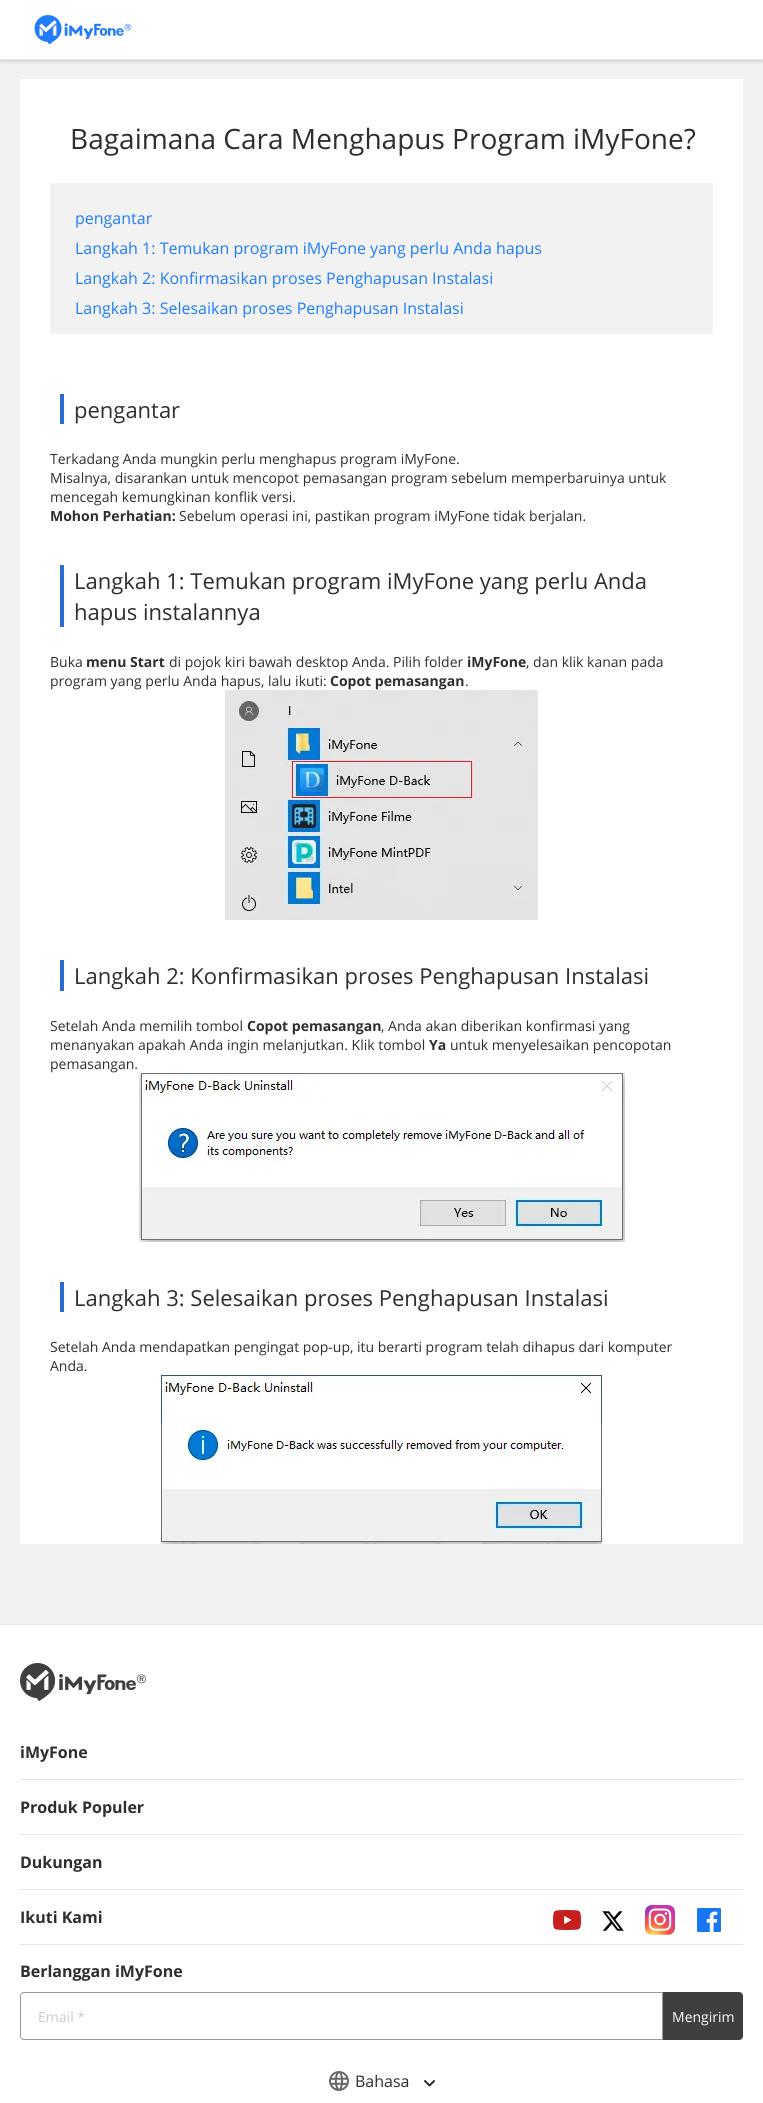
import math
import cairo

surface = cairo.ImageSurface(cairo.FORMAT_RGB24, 763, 2103)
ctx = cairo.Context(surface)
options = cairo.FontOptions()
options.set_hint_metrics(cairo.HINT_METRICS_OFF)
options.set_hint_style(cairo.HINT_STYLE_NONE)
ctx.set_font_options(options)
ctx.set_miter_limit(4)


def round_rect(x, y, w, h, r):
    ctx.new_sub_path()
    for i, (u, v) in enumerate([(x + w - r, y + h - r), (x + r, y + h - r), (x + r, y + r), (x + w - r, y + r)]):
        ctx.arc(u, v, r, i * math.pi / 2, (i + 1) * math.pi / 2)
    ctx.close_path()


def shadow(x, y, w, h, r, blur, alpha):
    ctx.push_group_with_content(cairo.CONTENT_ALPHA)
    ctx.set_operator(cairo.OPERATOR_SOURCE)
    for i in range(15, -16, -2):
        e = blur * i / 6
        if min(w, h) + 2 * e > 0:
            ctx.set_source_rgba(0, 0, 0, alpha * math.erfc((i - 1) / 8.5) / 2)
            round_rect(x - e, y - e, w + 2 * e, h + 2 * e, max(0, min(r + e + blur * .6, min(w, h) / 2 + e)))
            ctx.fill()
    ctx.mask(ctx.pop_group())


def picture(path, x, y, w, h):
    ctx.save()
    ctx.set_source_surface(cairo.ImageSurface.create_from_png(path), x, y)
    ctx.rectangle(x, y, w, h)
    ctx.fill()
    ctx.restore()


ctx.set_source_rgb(1, 1, 1)
ctx.paint()
ctx.set_source_rgb(0.949, 0.949, 0.949)
ctx.rectangle(0, 60, 763, 1564)
ctx.fill()
ctx.save()
ctx.rectangle(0, 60, 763, 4)
ctx.clip()
ctx.set_source_rgb(0.361, 0.369, 0.365)
shadow(0, 2, 763, 59, 0, 2, 0.3)
ctx.restore()
picture("img1.png", 34, 15, 98, 30)
ctx.set_source_rgb(0.89, 0.898, 0.914)
ctx.rectangle(0, 59, 763, 1)
ctx.fill()
ctx.set_source_rgb(1, 1, 1)
ctx.rectangle(20, 79, 723, 1465)
ctx.fill()
ctx.select_font_face("Open Sans")
ctx.set_font_size(28)
ctx.set_source_rgb(0.18, 0.18, 0.18)
ctx.move_to(70, 149)
ctx.show_text("Bagaimana Cara Menghapus Program iMyFone?")
ctx.set_source_rgb(0.949, 0.949, 0.949)
ctx.rectangle(50, 183, 663, 151)
ctx.fill()
ctx.set_font_size(16)
ctx.set_source_rgb(0.125, 0.486, 0.984)
ctx.move_to(75, 224)
ctx.show_text("pengantar")
ctx.move_to(75, 254)
ctx.show_text("Langkah 1: Temukan program iMyFone yang perlu Anda hapus")
ctx.move_to(75, 284)
ctx.show_text("Langkah 2: Konfirmasikan proses Penghapusan Instalasi")
ctx.move_to(75, 314)
ctx.show_text("Langkah 3: Selesaikan proses Penghapusan Instalasi")
ctx.set_source_rgb(0.165, 0.424, 0.816)
ctx.rectangle(60, 394, 4, 30)
ctx.fill()
ctx.set_font_size(22)
ctx.set_source_rgb(0.18, 0.18, 0.18)
ctx.move_to(74, 418)
ctx.show_text("pengantar")
ctx.set_font_size(14)
ctx.move_to(50, 464)
ctx.show_text("Terkadang Anda mungkin perlu menghapus program iMyFone.")
ctx.move_to(50, 483)
ctx.show_text("Misalnya, disarankan untuk mencopot pemasangan program sebelum memperbaruinya untuk")
ctx.move_to(50, 502)
ctx.show_text("mencegah kemungkinan konflik versi.")
ctx.select_font_face("Open Sans", cairo.FONT_SLANT_NORMAL, cairo.FONT_WEIGHT_BOLD)
ctx.move_to(50, 521)
ctx.show_text("Mohon Perhatian:")
ctx.select_font_face("Open Sans")
ctx.move_to(179, 521)
ctx.show_text("Sebelum operasi ini, pastikan program iMyFone tidak berjalan.")
ctx.set_source_rgb(0.165, 0.424, 0.816)
ctx.rectangle(60, 565, 4, 62)
ctx.fill()
ctx.set_font_size(22)
ctx.set_source_rgb(0.18, 0.18, 0.18)
ctx.move_to(74, 589)
ctx.show_text("Langkah 1: Temukan program iMyFone yang perlu Anda")
ctx.move_to(74, 620)
ctx.show_text("hapus instalannya")
ctx.set_font_size(14)
ctx.move_to(50, 667)
ctx.show_text("Buka")
ctx.select_font_face("Open Sans", cairo.FONT_SLANT_NORMAL, cairo.FONT_WEIGHT_BOLD)
ctx.move_to(86, 667)
ctx.show_text("menu Start")
ctx.select_font_face("Open Sans")
ctx.move_to(169, 667)
ctx.show_text("di pojok kiri bawah desktop Anda. Pilih folder")
ctx.select_font_face("Open Sans", cairo.FONT_SLANT_NORMAL, cairo.FONT_WEIGHT_BOLD)
ctx.move_to(467, 667)
ctx.show_text("iMyFone")
ctx.select_font_face("Open Sans")
ctx.move_to(526, 667)
ctx.show_text(", dan klik kanan pada")
ctx.move_to(50, 686)
ctx.show_text("program yang perlu Anda hapus, lalu ikuti:")
ctx.select_font_face("Open Sans", cairo.FONT_SLANT_NORMAL, cairo.FONT_WEIGHT_BOLD)
ctx.move_to(330, 686)
ctx.show_text("Copot pemasangan")
ctx.select_font_face("Open Sans")
ctx.move_to(465, 686)
ctx.show_text(".")
picture("img2.png", 225, 690, 313, 230)
ctx.set_source_rgb(0.165, 0.424, 0.816)
ctx.rectangle(60, 960, 4, 31)
ctx.fill()
ctx.set_font_size(22)
ctx.set_source_rgb(0.18, 0.18, 0.18)
ctx.move_to(74, 984)
ctx.show_text("Langkah 2: Konfirmasikan proses Penghapusan Instalasi")
ctx.set_font_size(14)
ctx.move_to(50, 1031)
ctx.show_text("Setelah Anda memilih tombol")
ctx.select_font_face("Open Sans", cairo.FONT_SLANT_NORMAL, cairo.FONT_WEIGHT_BOLD)
ctx.move_to(247, 1031)
ctx.show_text("Copot pemasangan")
ctx.select_font_face("Open Sans")
ctx.move_to(381, 1031)
ctx.show_text(", Anda akan diberikan konfirmasi yang")
ctx.move_to(50, 1050)
ctx.show_text("menanyakan apakah Anda ingin melanjutkan. Klik tombol")
ctx.select_font_face("Open Sans", cairo.FONT_SLANT_NORMAL, cairo.FONT_WEIGHT_BOLD)
ctx.move_to(429, 1050)
ctx.show_text("Ya")
ctx.select_font_face("Open Sans")
ctx.move_to(450, 1050)
ctx.show_text("untuk menyelesaikan pencopotan")
ctx.move_to(50, 1069)
ctx.show_text("pemasangan.")
picture("img3.png", 139, 1073, 486, 169)
ctx.set_source_rgb(0.165, 0.424, 0.816)
ctx.rectangle(60, 1282, 4, 30)
ctx.fill()
ctx.set_font_size(22)
ctx.set_source_rgb(0.18, 0.18, 0.18)
ctx.move_to(74, 1306)
ctx.show_text("Langkah 3: Selesaikan proses Penghapusan Instalasi")
ctx.set_font_size(14)
ctx.move_to(50, 1352)
ctx.show_text("Setelah Anda mendapatkan pengingat pop-up, itu berarti program telah dihapus dari komputer")
ctx.move_to(50, 1371)
ctx.show_text("Anda.")
picture("img4.png", 161, 1375, 441, 169)
ctx.set_source_rgb(0.89, 0.898, 0.914)
ctx.rectangle(0, 1624, 763, 1)
ctx.fill()
picture("img5.png", 20, 1663, 126, 39)
ctx.rectangle(20, 1779, 723, 1)
ctx.fill()
ctx.select_font_face("Open Sans", cairo.FONT_SLANT_NORMAL, cairo.FONT_WEIGHT_BOLD)
ctx.set_font_size(16)
ctx.set_source_rgb(0.18, 0.18, 0.18)
ctx.move_to(20, 1758)
ctx.show_text("iMyFone")
ctx.set_source_rgb(0.89, 0.898, 0.914)
ctx.rectangle(20, 1834, 723, 1)
ctx.fill()
ctx.set_source_rgb(0.18, 0.18, 0.18)
ctx.move_to(20, 1813)
ctx.show_text("Produk Populer")
ctx.set_source_rgb(0.89, 0.898, 0.914)
ctx.rectangle(20, 1889, 723, 1)
ctx.fill()
ctx.set_source_rgb(0.18, 0.18, 0.18)
ctx.move_to(20, 1868)
ctx.show_text("Dukungan")
ctx.set_source_rgb(0.89, 0.898, 0.914)
ctx.rectangle(20, 1944, 723, 1)
ctx.fill()
ctx.set_source_rgb(0.18, 0.18, 0.18)
ctx.move_to(20, 1923)
ctx.show_text("Ikuti Kami")
picture("img6.png", 553, 1910, 28, 20)
picture("img7.png", 602, 1911, 22, 20)
picture("img8.png", 645, 1905, 30, 30)
picture("img9.png", 697, 1908, 24, 24)
ctx.move_to(20, 1977)
ctx.show_text("Berlanggan iMyFone")
ctx.new_path()
ctx.move_to(24, 1992.5)
ctx.line_to(662.5, 1992.5)
ctx.line_to(662.5, 2039.5)
ctx.line_to(24, 2039.5)
ctx.curve_to(22, 2039.5, 20.5, 2038, 20.5, 2036)
ctx.line_to(20.5, 1996)
ctx.curve_to(20.5, 1994, 22, 1992.5, 24, 1992.5)
ctx.close_path()
ctx.set_source_rgb(0.6, 0.6, 0.6)
ctx.set_line_width(1)
ctx.stroke()
ctx.select_font_face("Open Sans")
ctx.set_font_size(14)
ctx.set_source_rgb(0.8, 0.8, 0.8)
ctx.move_to(38, 2022)
ctx.show_text("Email *")
ctx.set_source_rgb(0.247, 0.247, 0.247)
ctx.new_path()
ctx.move_to(663.5, 1992.5)
ctx.line_to(739, 1992.5)
ctx.curve_to(741, 1992.5, 742.5, 1994, 742.5, 1996)
ctx.line_to(742.5, 2036)
ctx.curve_to(742.5, 2038, 741, 2039.5, 739, 2039.5)
ctx.line_to(663.5, 2039.5)
ctx.close_path()
ctx.fill_preserve()
ctx.stroke()
ctx.set_source_rgb(1, 1, 1)
ctx.move_to(672, 2022)
ctx.show_text("Mengirim")
picture("img10.png", 329, 2071, 20, 20)
ctx.set_font_size(16)
ctx.set_source_rgb(0.18, 0.18, 0.18)
ctx.move_to(355, 2087)
ctx.show_text("Bahasa")
picture("img11.png", 424, 2080, 11, 7)
surface.write_to_png("page.png")
